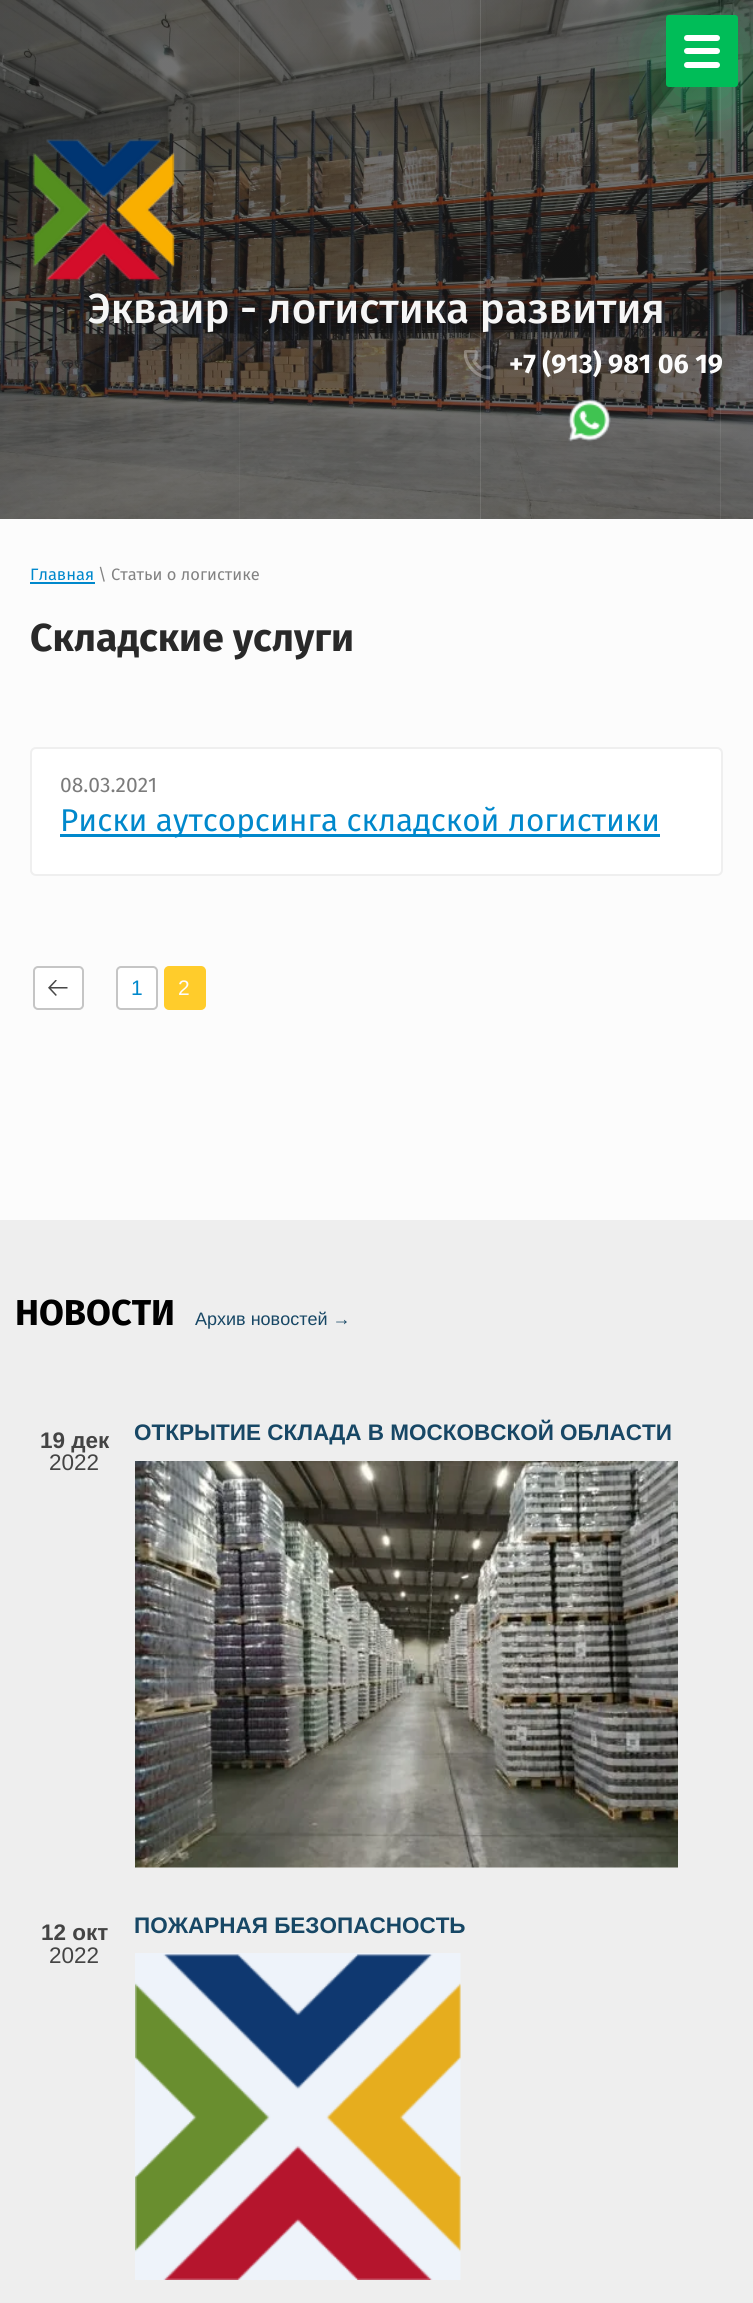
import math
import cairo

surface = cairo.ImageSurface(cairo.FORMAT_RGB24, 753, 2303)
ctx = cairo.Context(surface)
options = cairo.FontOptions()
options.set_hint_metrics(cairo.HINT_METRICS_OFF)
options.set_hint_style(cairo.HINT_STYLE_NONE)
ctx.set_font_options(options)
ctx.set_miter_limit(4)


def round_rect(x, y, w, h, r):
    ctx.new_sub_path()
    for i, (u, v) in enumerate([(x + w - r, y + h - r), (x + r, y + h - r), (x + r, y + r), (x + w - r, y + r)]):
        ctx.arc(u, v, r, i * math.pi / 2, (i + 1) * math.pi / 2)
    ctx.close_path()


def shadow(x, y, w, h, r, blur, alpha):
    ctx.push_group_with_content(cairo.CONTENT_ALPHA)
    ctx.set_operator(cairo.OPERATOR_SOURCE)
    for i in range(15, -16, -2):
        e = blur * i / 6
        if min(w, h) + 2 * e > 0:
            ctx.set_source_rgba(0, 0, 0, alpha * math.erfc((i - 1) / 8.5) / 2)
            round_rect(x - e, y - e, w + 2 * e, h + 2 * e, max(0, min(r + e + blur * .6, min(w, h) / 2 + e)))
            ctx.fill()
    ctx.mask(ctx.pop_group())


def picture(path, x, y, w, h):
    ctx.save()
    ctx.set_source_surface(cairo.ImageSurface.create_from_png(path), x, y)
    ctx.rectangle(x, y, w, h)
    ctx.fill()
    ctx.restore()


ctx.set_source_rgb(0.988, 0.988, 0.988)
ctx.paint()
picture("img1.png", 0, 0, 753, 519)
ctx.set_source_rgb(0, 0.741, 0.345)
shadow(666, 33, 72, 72, 3, 32, 0.48)
ctx.set_source_rgb(0, 0.741, 0.345)
round_rect(666, 15, 72, 72, 3)
ctx.fill()
ctx.set_source_rgb(1, 1, 1)
round_rect(684, 35, 36, 6, 3)
ctx.fill()
round_rect(684, 48, 36, 6, 3)
ctx.fill()
round_rect(684, 62, 36, 6, 3)
ctx.fill()
picture("img2.png", 32, 139, 143, 142)
ctx.select_font_face("Fira Sans Medium")
ctx.set_font_size(42)
ctx.set_source_rgb(0.961, 0.961, 0.961)
ctx.move_to(88, 323)
ctx.show_text("Экваир - логистика развития")
picture("img3.png", 464, 350, 30, 30)
ctx.select_font_face("Fira Sans", cairo.FONT_SLANT_NORMAL, cairo.FONT_WEIGHT_BOLD)
ctx.set_font_size(27)
ctx.set_source_rgb(0.988, 0.988, 0.988)
ctx.move_to(509, 373)
ctx.show_text("+7 (913) 981 06 19")
picture("img4.png", 568, 398, 43, 44)
ctx.select_font_face("Fira Sans")
ctx.set_font_size(16.5)
ctx.set_source_rgb(0, 0.533, 0.8)
ctx.move_to(30, 580)
ctx.show_text("Главная")
ctx.rectangle(30, 582, 65, 2)
ctx.fill()
ctx.set_source_rgb(0.51, 0.51, 0.51)
ctx.move_to(98, 580)
ctx.show_text("\\ Статьи о логистике")
ctx.select_font_face("Fira Sans", cairo.FONT_SLANT_NORMAL, cairo.FONT_WEIGHT_BOLD)
ctx.set_font_size(39)
ctx.set_source_rgb(0.161, 0.161, 0.161)
ctx.move_to(30, 651)
ctx.show_text("Складские услуги")
ctx.set_source_rgb(1, 1, 1)
round_rect(31, 748, 691, 127, 5)
ctx.fill_preserve()
ctx.set_source_rgb(0.937, 0.937, 0.937)
ctx.stroke()
ctx.select_font_face("Fira Sans")
ctx.set_font_size(21)
ctx.set_source_rgb(0.482, 0.482, 0.482)
ctx.move_to(60, 792)
ctx.show_text("08.03.2021")
ctx.set_source_rgb(0, 0.533, 0.8)
ctx.rectangle(60, 834, 600, 3)
ctx.fill()
ctx.set_font_size(31.5)
ctx.move_to(60, 831)
ctx.show_text("Риски аутсорсинга складской логистики")
ctx.set_source_rgb(1, 1, 1)
round_rect(34, 967, 49, 42, 4)
ctx.fill_preserve()
ctx.set_source_rgb(0.773, 0.773, 0.773)
ctx.stroke()
picture("img5.png", 48, 980, 20, 16)
ctx.set_source_rgb(1, 1, 1)
round_rect(117, 967, 40, 42, 4)
ctx.fill_preserve()
ctx.set_source_rgb(0.773, 0.773, 0.773)
ctx.stroke()
ctx.select_font_face("Liberation Sans")
ctx.set_font_size(21)
ctx.set_source_rgb(0, 0.533, 0.8)
ctx.move_to(131, 995)
ctx.show_text("1")
ctx.set_source_rgb(1, 0.8, 0.169)
round_rect(165, 967, 40, 42, 4)
ctx.fill_preserve()
ctx.stroke()
ctx.set_source_rgb(0.988, 0.988, 0.988)
ctx.move_to(178, 995)
ctx.show_text("2")
ctx.set_source_rgb(0.933, 0.933, 0.933)
ctx.rectangle(0, 1220, 753, 1083)
ctx.fill()
ctx.select_font_face("Fira Sans", cairo.FONT_SLANT_NORMAL, cairo.FONT_WEIGHT_BOLD)
ctx.set_font_size(36)
ctx.set_source_rgb(0, 0, 0)
ctx.move_to(15, 1325)
ctx.show_text("НОВОСТИ")
ctx.select_font_face("Liberation Sans")
ctx.set_font_size(18)
ctx.set_source_rgb(0.09, 0.278, 0.396)
ctx.move_to(195, 1325)
ctx.show_text("Архив новостей →")
ctx.select_font_face("Liberation Sans", cairo.FONT_SLANT_NORMAL, cairo.FONT_WEIGHT_BOLD)
ctx.set_font_size(22.5)
ctx.set_source_rgb(0.267, 0.267, 0.267)
ctx.move_to(40, 1448)
ctx.show_text("19 дек")
ctx.select_font_face("Liberation Sans")
ctx.move_to(49, 1470)
ctx.show_text("2022")
ctx.select_font_face("Liberation Sans", cairo.FONT_SLANT_NORMAL, cairo.FONT_WEIGHT_BOLD)
ctx.set_source_rgb(0.09, 0.278, 0.396)
ctx.move_to(134, 1440)
ctx.show_text("ОТКРЫТИЕ СКЛАДА В МОСКОВСКОЙ ОБЛАСТИ")
picture("img6.png", 135, 1461, 543, 407)
ctx.set_source_rgb(0.267, 0.267, 0.267)
ctx.move_to(41, 1940)
ctx.show_text("12 окт")
ctx.select_font_face("Liberation Sans")
ctx.move_to(49, 1963)
ctx.show_text("2022")
ctx.select_font_face("Liberation Sans", cairo.FONT_SLANT_NORMAL, cairo.FONT_WEIGHT_BOLD)
ctx.set_source_rgb(0.09, 0.278, 0.396)
ctx.move_to(134, 1933)
ctx.show_text("ПОЖАРНАЯ БЕЗОПАСНОСТЬ")
picture("img7.png", 135, 1953, 326, 327)
surface.write_to_png("page.png")
